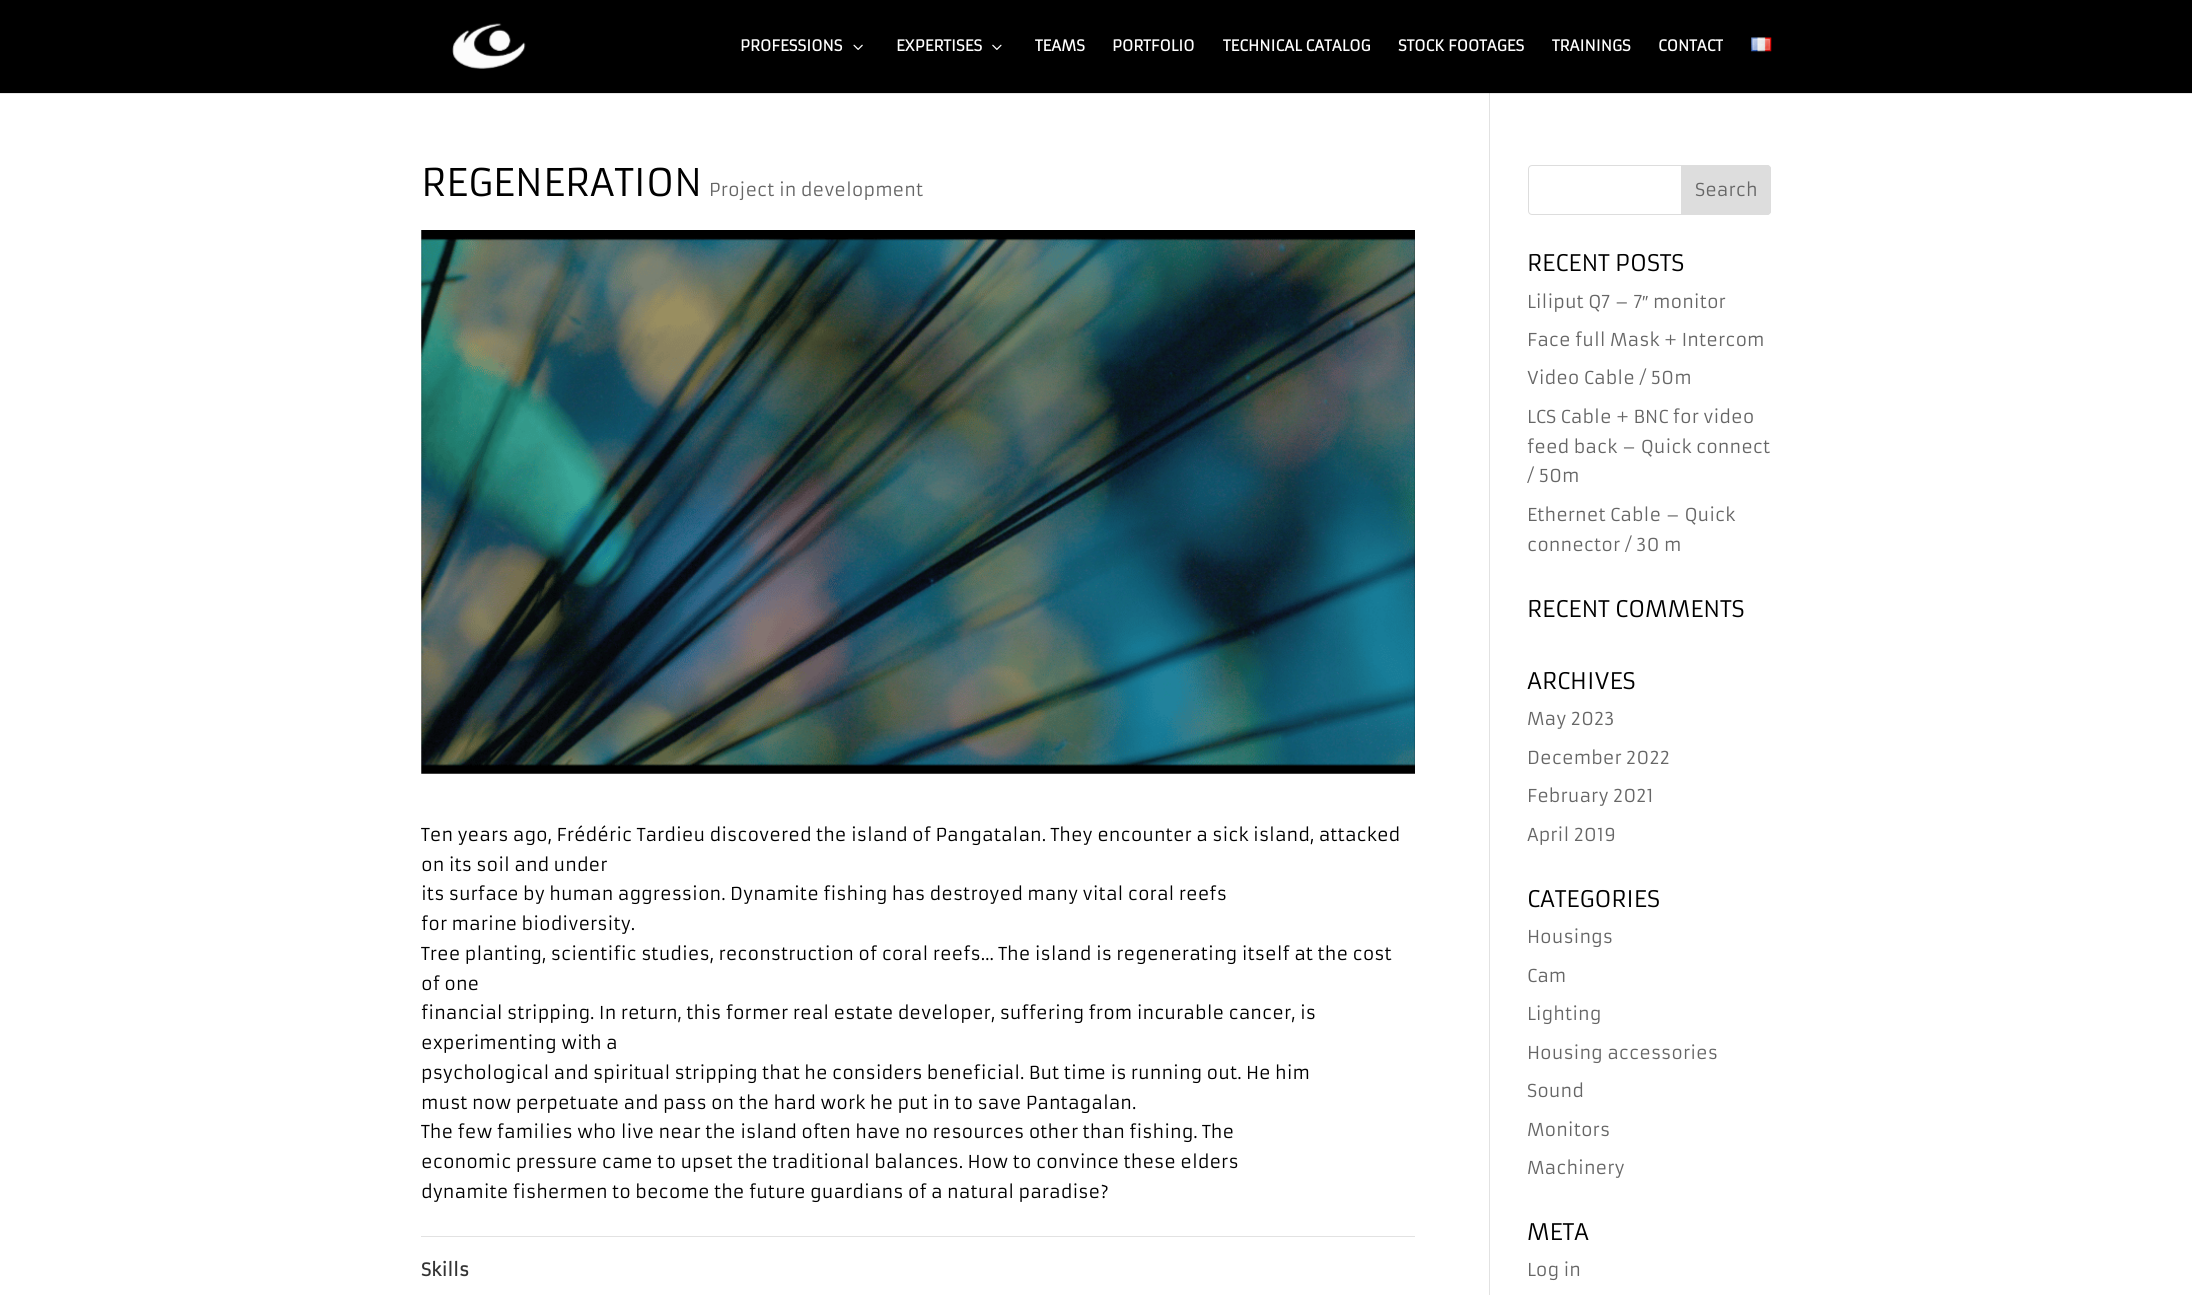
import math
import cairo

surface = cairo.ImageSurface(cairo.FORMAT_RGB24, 2192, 1295)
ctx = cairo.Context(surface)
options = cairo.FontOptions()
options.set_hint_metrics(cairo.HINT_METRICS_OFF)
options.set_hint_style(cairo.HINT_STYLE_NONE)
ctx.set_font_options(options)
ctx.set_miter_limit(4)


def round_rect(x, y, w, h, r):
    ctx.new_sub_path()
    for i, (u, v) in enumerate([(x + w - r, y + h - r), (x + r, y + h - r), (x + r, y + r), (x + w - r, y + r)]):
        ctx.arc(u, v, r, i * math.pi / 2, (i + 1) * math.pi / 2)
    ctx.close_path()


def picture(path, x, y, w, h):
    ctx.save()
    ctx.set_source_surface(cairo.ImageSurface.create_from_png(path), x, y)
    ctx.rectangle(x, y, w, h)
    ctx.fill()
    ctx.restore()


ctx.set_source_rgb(0, 0, 0)
ctx.paint()
ctx.set_source_rgb(1, 1, 1)
ctx.rectangle(0, 93, 2192, 1202)
ctx.fill()
ctx.set_source_rgb(0.886, 0.886, 0.886)
ctx.rectangle(1489, 93, 1, 1202)
ctx.fill()
ctx.set_source_rgba(0, 0, 0, 0.1)
ctx.new_path()
ctx.move_to(0, 92)
ctx.line_to(0, 94)
ctx.line_to(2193, 94)
ctx.line_to(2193, 1)
ctx.line_to(2192, 1)
ctx.line_to(2192, 92)
ctx.close_path()
ctx.fill()
picture("img1.png", 452, 23, 74, 46)
ctx.select_font_face("Armata", cairo.FONT_SLANT_NORMAL, cairo.FONT_WEIGHT_BOLD)
ctx.set_font_size(15)
ctx.set_source_rgb(1, 1, 1)
ctx.move_to(740, 51)
ctx.show_text("PROFESSIONS")
picture("img2.png", 853, 44, 10, 6)
ctx.move_to(896, 51)
ctx.show_text("EXPERTISES")
picture("img3.png", 992, 44, 10, 6)
ctx.move_to(1035, 51)
ctx.show_text("TEAMS")
ctx.move_to(1112, 51)
ctx.show_text("PORTFOLIO")
ctx.move_to(1223, 51)
ctx.show_text("TECHNICAL CATALOG")
ctx.move_to(1398, 51)
ctx.show_text("STOCK FOOTAGES")
ctx.move_to(1552, 51)
ctx.show_text("TRAININGS")
ctx.move_to(1658, 51)
ctx.show_text("CONTACT")
picture("img4.png", 1751, 37, 21, 15)
ctx.select_font_face("Armata")
ctx.set_font_size(37.5)
ctx.set_source_rgb(0, 0, 0)
ctx.move_to(421, 196)
ctx.show_text("REGENERATION")
ctx.set_font_size(17.5)
ctx.set_source_rgb(0.4, 0.4, 0.4)
ctx.move_to(709, 196)
ctx.show_text("Project in development")
picture("img5.png", 421, 230, 994, 544)
ctx.set_source_rgb(0, 0, 0)
ctx.move_to(421, 841)
ctx.show_text("Ten years ago, Frédéric Tardieu discovered the island of Pangatalan. They encounter a sick island, attacked")
ctx.move_to(421, 871)
ctx.show_text("on its soil and under")
ctx.move_to(421, 900)
ctx.show_text("its surface by human aggression. Dynamite fishing has destroyed many vital coral reefs")
ctx.move_to(421, 930)
ctx.show_text("for marine biodiversity.")
ctx.move_to(421, 960)
ctx.show_text("Tree planting, scientific studies, reconstruction of coral reefs… The island is regenerating itself at the cost")
ctx.move_to(421, 990)
ctx.show_text("of one")
ctx.move_to(421, 1019)
ctx.show_text("financial stripping. In return, this former real estate developer, suffering from incurable cancer, is")
ctx.move_to(421, 1049)
ctx.show_text("experimenting with a")
ctx.move_to(421, 1079)
ctx.show_text("psychological and spiritual stripping that he considers beneficial. But time is running out. He him")
ctx.move_to(421, 1109)
ctx.show_text("must now perpetuate and pass on the hard work he put in to save Pantagalan.")
ctx.move_to(421, 1138)
ctx.show_text("The few families who live near the island often have no resources other than fishing. The")
ctx.move_to(421, 1168)
ctx.show_text("economic pressure came to upset the traditional balances. How to convince these elders")
ctx.move_to(421, 1198)
ctx.show_text("dynamite fishermen to become the future guardians of a natural paradise?")
ctx.set_source_rgb(0.886, 0.886, 0.886)
ctx.rectangle(421, 1236, 994, 1)
ctx.fill()
ctx.select_font_face("Armata", cairo.FONT_SLANT_NORMAL, cairo.FONT_WEIGHT_BOLD)
ctx.set_source_rgb(0.2, 0.2, 0.2)
ctx.move_to(421, 1276)
ctx.show_text("Skills")
round_rect(1528.5, 165.5, 242, 49, 3.5)
ctx.set_source_rgb(0.867, 0.867, 0.867)
ctx.set_line_width(1)
ctx.stroke()
ctx.new_path()
ctx.move_to(1681.5, 165.5)
ctx.line_to(1767, 165.5)
ctx.curve_to(1769, 165.5, 1770.5, 167, 1770.5, 169)
ctx.line_to(1770.5, 211)
ctx.curve_to(1770.5, 213, 1769, 214.5, 1767, 214.5)
ctx.line_to(1681.5, 214.5)
ctx.close_path()
ctx.fill_preserve()
ctx.stroke()
ctx.select_font_face("Armata")
ctx.set_source_rgb(0.4, 0.4, 0.4)
ctx.move_to(1695, 196)
ctx.show_text("Search")
ctx.set_font_size(22.5)
ctx.set_source_rgb(0, 0, 0)
ctx.move_to(1527, 271)
ctx.show_text("RECENT POSTS")
ctx.set_font_size(17.5)
ctx.set_source_rgb(0.4, 0.4, 0.4)
ctx.move_to(1527, 308)
ctx.show_text("Liliput Q7 – 7")
ctx.select_font_face("Liberation Sans")
ctx.move_to(1642, 308)
ctx.show_text("″")
ctx.select_font_face("Armata")
ctx.move_to(1653, 308)
ctx.show_text("monitor")
ctx.move_to(1527, 346)
ctx.show_text("Face full Mask + Intercom")
ctx.move_to(1527, 384)
ctx.show_text("Video Cable / 50m")
ctx.move_to(1527, 423)
ctx.show_text("LCS Cable + BNC for video")
ctx.move_to(1527, 453)
ctx.show_text("feed back – Quick connect")
ctx.move_to(1527, 482)
ctx.show_text("/ 50m")
ctx.move_to(1527, 521)
ctx.show_text("Ethernet Cable – Quick")
ctx.move_to(1527, 551)
ctx.show_text("connector / 30 m")
ctx.set_font_size(22.5)
ctx.set_source_rgb(0, 0, 0)
ctx.move_to(1527, 617)
ctx.show_text("RECENT COMMENTS")
ctx.move_to(1527, 689)
ctx.show_text("ARCHIVES")
ctx.set_font_size(17.5)
ctx.set_source_rgb(0.4, 0.4, 0.4)
ctx.move_to(1527, 725)
ctx.show_text("May 2023")
ctx.move_to(1527, 764)
ctx.show_text("December 2022")
ctx.move_to(1527, 802)
ctx.show_text("February 2021")
ctx.move_to(1527, 841)
ctx.show_text("April 2019")
ctx.set_font_size(22.5)
ctx.set_source_rgb(0, 0, 0)
ctx.move_to(1527, 907)
ctx.show_text("CATEGORIES")
ctx.set_font_size(17.5)
ctx.set_source_rgb(0.4, 0.4, 0.4)
ctx.move_to(1527, 943)
ctx.show_text("Housings")
ctx.move_to(1527, 982)
ctx.show_text("Cam")
ctx.move_to(1527, 1020)
ctx.show_text("Lighting")
ctx.move_to(1527, 1059)
ctx.show_text("Housing accessories")
ctx.move_to(1527, 1097)
ctx.show_text("Sound")
ctx.move_to(1527, 1136)
ctx.show_text("Monitors")
ctx.move_to(1527, 1174)
ctx.show_text("Machinery")
ctx.set_font_size(22.5)
ctx.set_source_rgb(0, 0, 0)
ctx.move_to(1527, 1240)
ctx.show_text("META")
ctx.set_font_size(17.5)
ctx.set_source_rgb(0.4, 0.4, 0.4)
ctx.move_to(1527, 1276)
ctx.show_text("Log in")
surface.write_to_png("page.png")
